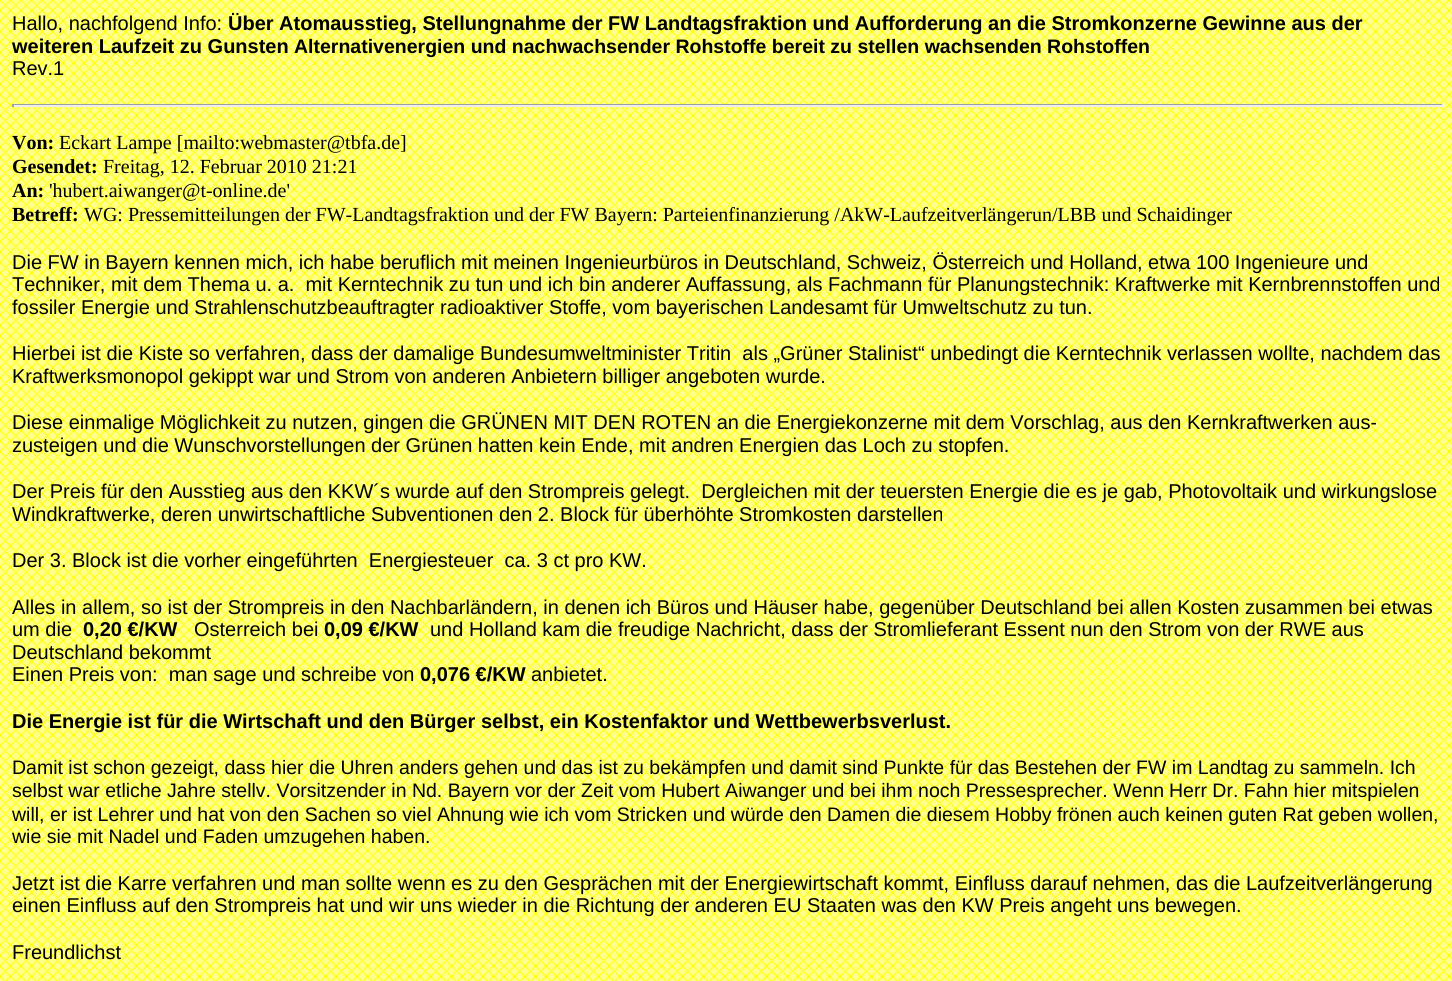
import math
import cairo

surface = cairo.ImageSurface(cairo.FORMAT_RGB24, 1452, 981)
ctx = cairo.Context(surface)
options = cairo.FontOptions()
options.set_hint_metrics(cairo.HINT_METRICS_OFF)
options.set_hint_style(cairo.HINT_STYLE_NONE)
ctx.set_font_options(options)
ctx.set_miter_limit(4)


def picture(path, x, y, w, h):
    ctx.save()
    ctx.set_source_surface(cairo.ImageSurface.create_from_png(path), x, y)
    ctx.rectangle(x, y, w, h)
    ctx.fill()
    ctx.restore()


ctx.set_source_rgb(1, 1, 1)
ctx.paint()
picture("img1.png", 0, 0, 1452, 981)
ctx.select_font_face("Liberation Sans")
ctx.set_font_size(20)
ctx.set_source_rgb(0, 0, 0)
ctx.move_to(12, 30)
ctx.show_text("Hallo, nachfolgend Info:")
ctx.select_font_face("Liberation Sans", cairo.FONT_SLANT_NORMAL, cairo.FONT_WEIGHT_BOLD)
ctx.move_to(228, 30)
ctx.show_text("Über Atomausstieg, Stellungnahme der FW Landtagsfraktion und Aufforderung an die Stromkonzerne Gewinne aus der")
ctx.move_to(12, 53)
ctx.show_text("weiteren Laufzeit zu Gunsten")
ctx.set_font_size(19.5)
ctx.move_to(294, 53)
ctx.show_text("Alternativenergien und nachwachsender Rohstoffe bereit zu stellen wachsenden Rohstoffen")
ctx.select_font_face("Liberation Sans")
ctx.set_font_size(20)
ctx.move_to(12, 75)
ctx.show_text("Rev.1")
ctx.set_source_rgb(0.624, 0.624, 0.624)
ctx.rectangle(12, 104, 1431, 1)
ctx.fill()
ctx.set_source_rgb(0.933, 0.933, 0.933)
ctx.rectangle(1442, 104, 2, 3)
ctx.fill()
ctx.rectangle(12, 105, 1431, 2)
ctx.fill()
ctx.set_source_rgb(0.624, 0.624, 0.624)
ctx.rectangle(12, 104, 2, 3)
ctx.fill()
ctx.select_font_face("Liberation Serif", cairo.FONT_SLANT_NORMAL, cairo.FONT_WEIGHT_BOLD)
ctx.set_source_rgb(0, 0, 0)
ctx.move_to(12, 149)
ctx.show_text("Von:")
ctx.select_font_face("Liberation Serif")
ctx.move_to(59, 149)
ctx.show_text("Eckart Lampe [mailto:webmaster@tbfa.de]")
ctx.select_font_face("Liberation Serif", cairo.FONT_SLANT_NORMAL, cairo.FONT_WEIGHT_BOLD)
ctx.move_to(12, 173)
ctx.show_text("Gesendet:")
ctx.select_font_face("Liberation Serif")
ctx.move_to(103, 173)
ctx.show_text("Freitag, 12. Februar 2010 21:21")
ctx.select_font_face("Liberation Serif", cairo.FONT_SLANT_NORMAL, cairo.FONT_WEIGHT_BOLD)
ctx.move_to(12, 197)
ctx.show_text("An:")
ctx.select_font_face("Liberation Serif")
ctx.move_to(49, 197)
ctx.show_text("'hubert.aiwanger@t-online.de'")
ctx.select_font_face("Liberation Serif", cairo.FONT_SLANT_NORMAL, cairo.FONT_WEIGHT_BOLD)
ctx.move_to(12, 221)
ctx.show_text("Betreff:")
ctx.select_font_face("Liberation Serif")
ctx.move_to(84, 221)
ctx.show_text("WG: Pressemitteilungen der FW-Landtagsfraktion und der FW Bayern: Parteienfinanzierung /AkW-Laufzeitverlängerun/LBB und Schaidinger")
ctx.select_font_face("Liberation Sans")
ctx.move_to(12, 269)
ctx.show_text("Die FW in Bayern kennen mich, ich habe beruflich mit meinen Ingenieurbüros in Deutschland, Schweiz, Österreich und Holland, etwa 100 Ingenieure und")
ctx.move_to(12, 291)
ctx.show_text("Techniker, mit dem Thema u. a.  mit Kerntechnik zu tun und ich bin anderer Auffassung, als Fachmann für Planungstechnik: Kraftwerke mit Kernbrennstoffen und")
ctx.move_to(12, 314)
ctx.show_text("fossiler Energie und Strahlenschutzbeauftragter radioaktiver Stoffe, vom bayerischen Landesamt für Umweltschutz zu tun.")
ctx.move_to(12, 360)
ctx.show_text("Hierbei ist die Kiste so verfahren, dass der damalige Bundesumweltminister Tritin  als „Grüner Stalinist“ unbedingt die Kerntechnik verlassen wollte, nachdem das")
ctx.move_to(12, 383)
ctx.show_text("Kraftwerksmonopol gekippt war und Strom von anderen Anbietern billiger angeboten wurde.")
ctx.move_to(12, 429)
ctx.show_text("Diese einmalige Möglichkeit zu nutzen, gingen die GRÜNEN MIT DEN ROTEN an die Energiekonzerne mit dem Vorschlag, aus den Kernkraftwerken aus-")
ctx.move_to(12, 452)
ctx.show_text("zusteigen und die Wunschvorstellungen der Grünen hatten kein Ende, mit andren Energien das Loch zu stopfen.")
ctx.move_to(12, 498)
ctx.show_text("Der Preis für den Ausstieg aus den KKW´s wurde auf den Strompreis gelegt.  Dergleichen mit der teuersten Energie die es je gab, Photovoltaik und wirkungslose")
ctx.move_to(12, 521)
ctx.show_text("Windkraftwerke, deren unwirtschaftliche Subventionen den 2. Block für überhöhte Stromkosten darstellen")
ctx.move_to(12, 567)
ctx.show_text("Der 3. Block ist die vorher eingeführten  Energiesteuer  ca. 3 ct pro KW.")
ctx.move_to(12, 614)
ctx.show_text("Alles in allem, so ist der Strompreis in den Nachbarländern, in denen ich Büros und Häuser habe, gegenüber Deutschland bei allen Kosten zusammen bei etwas")
ctx.move_to(12, 636)
ctx.show_text("um die")
ctx.select_font_face("Liberation Sans", cairo.FONT_SLANT_NORMAL, cairo.FONT_WEIGHT_BOLD)
ctx.move_to(83, 636)
ctx.show_text("0,20 €/KW")
ctx.select_font_face("Liberation Sans")
ctx.move_to(194, 636)
ctx.show_text("Osterreich bei")
ctx.select_font_face("Liberation Sans", cairo.FONT_SLANT_NORMAL, cairo.FONT_WEIGHT_BOLD)
ctx.move_to(324, 636)
ctx.show_text("0,09 €/KW")
ctx.select_font_face("Liberation Sans")
ctx.move_to(430, 636)
ctx.show_text("und Holland kam die freudige Nachricht, dass der Stromlieferant Essent nun den Strom von der RWE aus")
ctx.move_to(12, 659)
ctx.show_text("Deutschland bekommt")
ctx.move_to(12, 681)
ctx.show_text("Einen Preis von:  man sage und schreibe von")
ctx.select_font_face("Liberation Sans", cairo.FONT_SLANT_NORMAL, cairo.FONT_WEIGHT_BOLD)
ctx.move_to(420, 681)
ctx.show_text("0,076 €/KW")
ctx.select_font_face("Liberation Sans")
ctx.move_to(531, 681)
ctx.show_text("anbietet.")
ctx.select_font_face("Liberation Sans", cairo.FONT_SLANT_NORMAL, cairo.FONT_WEIGHT_BOLD)
ctx.move_to(12, 728)
ctx.show_text("Die Energie ist für die Wirtschaft und den Bürger selbst, ein Kostenfaktor und Wettbewerbsverlust.")
ctx.select_font_face("Liberation Sans")
ctx.set_font_size(19.5)
ctx.move_to(12, 774)
ctx.show_text("Damit ist schon gezeigt, dass hier die Uhren anders gehen und das ist zu bekämpfen und damit sind Punkte für das Bestehen der FW im Landtag zu sammeln. Ich")
ctx.move_to(12, 797)
ctx.show_text("selbst war etliche Jahre stellv. Vorsitzender in Nd. Bayern vor der Zeit vom Hubert Aiwanger und bei ihm noch Pressesprecher. Wenn")
ctx.move_to(1169, 797)
ctx.show_text("Herr Dr. Fahn hier mitspielen")
ctx.move_to(12, 821)
ctx.show_text("will, er ist Lehrer und hat von den Sachen so viel Ahnung wie ich vom Stricken und würde den Damen die diesem Hobby frönen auch keinen guten Rat geben wollen,")
ctx.move_to(12, 843)
ctx.show_text("wie sie mit Nadel und Faden umzugehen haben.")
ctx.set_font_size(20)
ctx.move_to(12, 890)
ctx.show_text("Jetzt ist die Karre verfahren und man sollte wenn es zu den Gesprächen mit der Energiewirtschaft kommt, Einfluss darauf nehmen, das die Laufzeitverlängerung")
ctx.move_to(12, 912)
ctx.show_text("einen Einfluss auf den Strompreis hat und wir uns wieder in die Richtung der anderen EU Staaten was den KW Preis angeht uns bewegen.")
ctx.move_to(12, 959)
ctx.show_text("Freundlichst")
surface.write_to_png("page.png")
